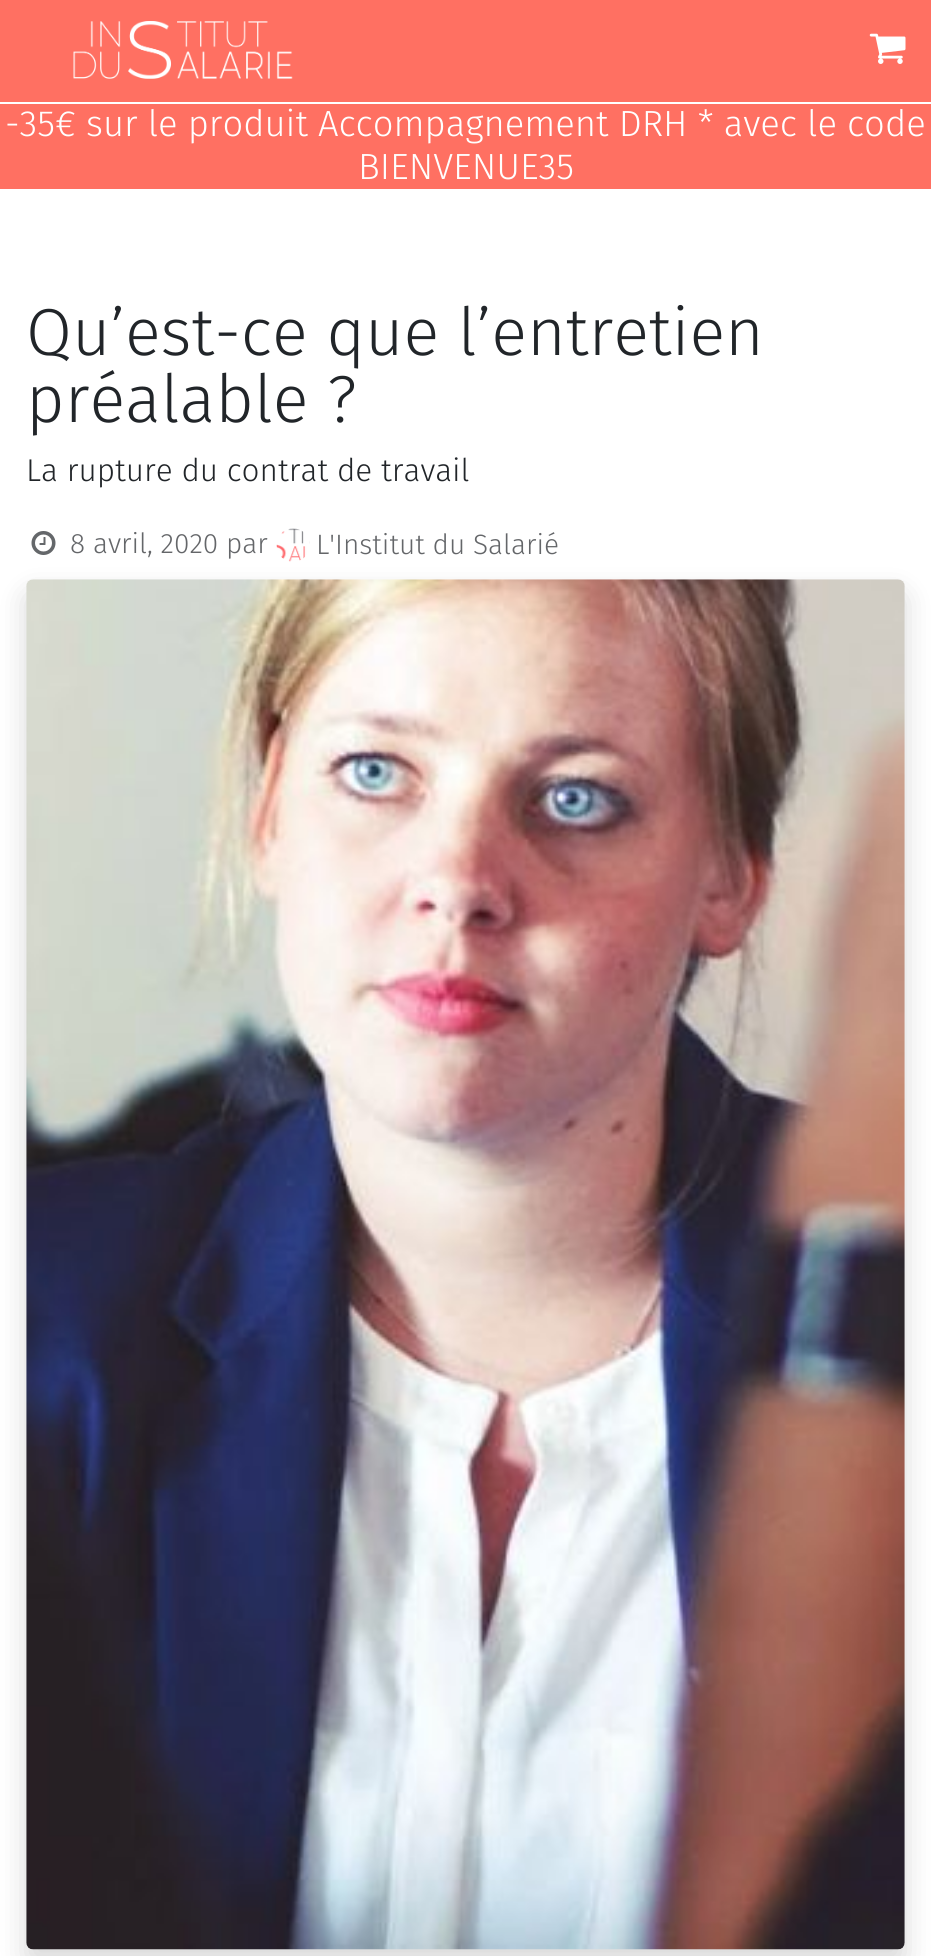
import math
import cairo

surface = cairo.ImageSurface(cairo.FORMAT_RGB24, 931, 1956)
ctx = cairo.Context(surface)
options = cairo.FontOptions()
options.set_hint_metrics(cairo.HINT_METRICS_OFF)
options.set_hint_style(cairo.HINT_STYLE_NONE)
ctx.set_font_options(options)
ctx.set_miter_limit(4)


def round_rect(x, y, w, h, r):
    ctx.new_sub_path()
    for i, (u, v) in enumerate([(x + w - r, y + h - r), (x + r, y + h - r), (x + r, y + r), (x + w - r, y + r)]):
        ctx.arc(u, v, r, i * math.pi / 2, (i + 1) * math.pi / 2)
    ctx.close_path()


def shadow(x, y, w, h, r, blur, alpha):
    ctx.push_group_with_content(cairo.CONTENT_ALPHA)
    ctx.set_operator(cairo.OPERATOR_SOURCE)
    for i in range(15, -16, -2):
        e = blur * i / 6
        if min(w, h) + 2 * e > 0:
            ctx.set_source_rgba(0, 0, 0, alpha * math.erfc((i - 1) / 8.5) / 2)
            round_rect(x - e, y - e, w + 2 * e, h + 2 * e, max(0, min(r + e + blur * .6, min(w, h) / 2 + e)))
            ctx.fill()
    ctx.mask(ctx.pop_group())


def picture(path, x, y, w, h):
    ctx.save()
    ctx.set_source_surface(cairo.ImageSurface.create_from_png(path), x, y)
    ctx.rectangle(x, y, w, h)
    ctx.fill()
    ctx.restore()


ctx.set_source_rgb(1, 1, 1)
ctx.paint()
ctx.set_source_rgb(1, 0.439, 0.384)
ctx.rectangle(0, 104, 931, 85)
ctx.fill()
ctx.select_font_face("Fira Sans Light")
ctx.set_font_size(36.4)
ctx.set_source_rgb(1, 1, 1)
ctx.move_to(5, 136)
ctx.show_text("-35€ sur le produit Accompagnement DRH * avec le code")
ctx.move_to(358, 179)
ctx.show_text("BIENVENUE35")
ctx.set_source_rgb(1, 0.439, 0.384)
ctx.rectangle(0, 0, 931, 102)
ctx.fill()
picture("img1.png", 73, 21, 220, 58)
picture("img2.png", 869, 33, 37, 31)
ctx.set_font_size(66.5)
ctx.set_source_rgb(0.129, 0.145, 0.161)
ctx.move_to(26, 355)
ctx.show_text("Qu’est-ce que l’entretien")
ctx.move_to(26, 422)
ctx.show_text("préalable ?")
ctx.set_font_size(31.5)
ctx.move_to(26, 481)
ctx.show_text("La rupture du contrat de travail")
picture("img3.png", 31, 531, 25, 24)
ctx.set_font_size(28)
ctx.set_source_rgb(0.392, 0.4, 0.412)
ctx.move_to(70, 553)
ctx.show_text("8 avril, 2020 par")
picture("img4.png", 276, 528, 34, 34)
ctx.move_to(316, 554)
ctx.show_text("L'Institut du Salarié")
ctx.set_source_rgb(0, 0, 0)
shadow(26, 593, 879, 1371, 7, 14, 0.15)
picture("img5.png", 26, 579, 879, 1371)
surface.write_to_png("page.png")
